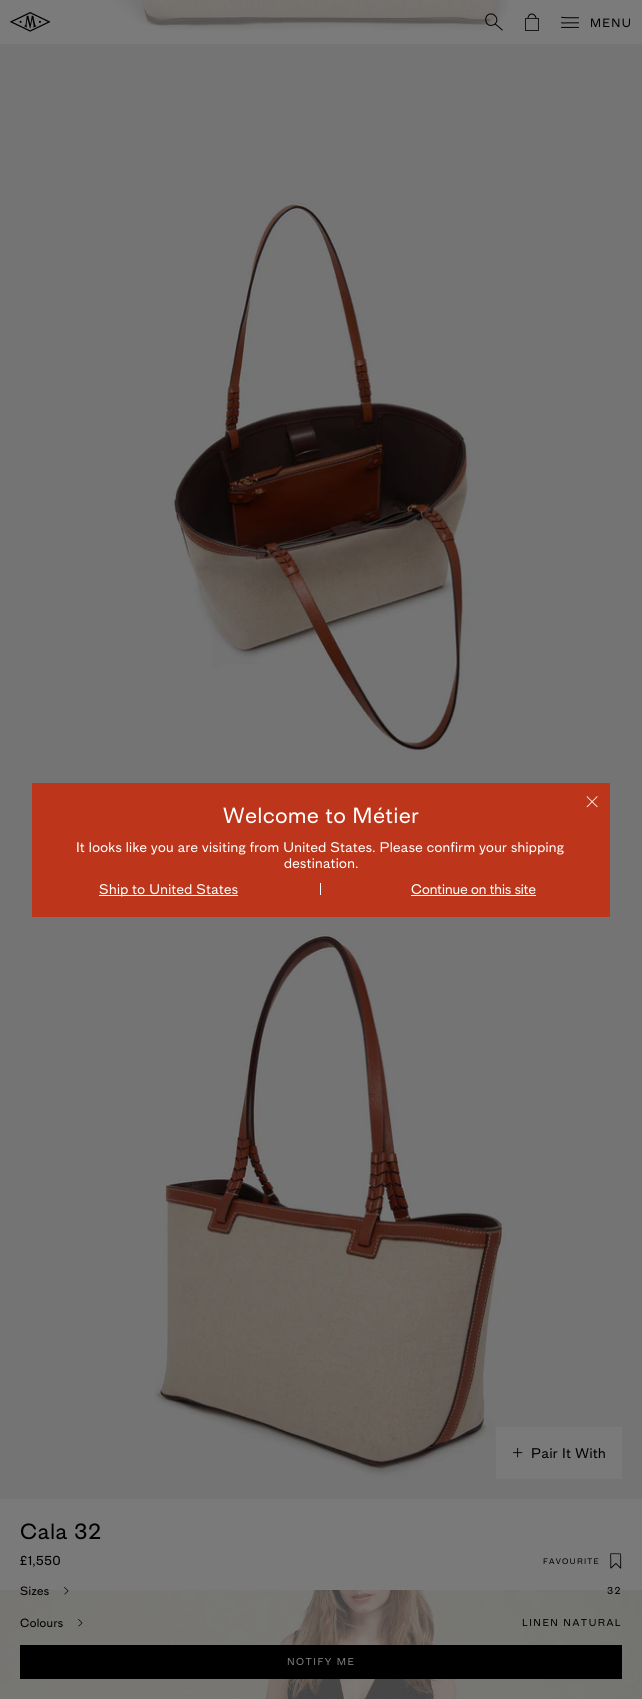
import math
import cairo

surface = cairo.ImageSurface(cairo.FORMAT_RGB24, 642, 1699)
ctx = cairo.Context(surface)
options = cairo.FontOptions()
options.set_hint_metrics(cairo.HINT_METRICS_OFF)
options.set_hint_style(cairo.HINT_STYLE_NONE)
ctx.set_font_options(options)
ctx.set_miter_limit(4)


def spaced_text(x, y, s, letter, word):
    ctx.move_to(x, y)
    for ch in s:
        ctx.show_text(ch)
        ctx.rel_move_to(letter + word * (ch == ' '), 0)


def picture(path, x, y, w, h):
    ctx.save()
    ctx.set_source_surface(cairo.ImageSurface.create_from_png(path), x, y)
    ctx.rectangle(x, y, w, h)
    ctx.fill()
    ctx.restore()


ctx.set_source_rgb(1, 1, 1)
ctx.paint()
picture("img6.png", 0, 0, 642, 123)
ctx.set_source_rgba(0.502, 0.502, 0.502, 0.6)
ctx.rectangle(0, 0, 642, 44)
ctx.fill()
picture("img1.png", 10, 12, 41, 20)
picture("img2.png", 485, 13, 18, 18)
picture("img3.png", 525, 13, 14, 18)
picture("img4.png", 561, 16, 18, 12)
ctx.select_font_face("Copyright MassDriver")
ctx.set_font_size(12)
ctx.set_source_rgb(0, 0, 0)
spaced_text(590, 27, "MENU", 1.25, 0)
picture("img7.png", 0, 123, 642, 733)
picture("img8.png", 0, 856, 642, 734)
ctx.set_source_rgb(0.741, 0.208, 0.102)
ctx.rectangle(32, 783, 578, 134)
ctx.fill()
picture("img5.png", 586, 796, 12, 12)
ctx.set_font_size(22)
ctx.set_source_rgb(1, 1, 1)
spaced_text(223, 823, "Welcome to Métier", 0.7, 0)
ctx.set_font_size(14)
spaced_text(76, 852, "It looks like you are visiting from United States. Please confirm your shipping", 0.35, 0)
spaced_text(284, 868, "destination.", 0.35, 0)
ctx.rectangle(99, 895, 139, 1)
ctx.fill()
spaced_text(99, 894, "Ship to United States", 0.35, 0)
ctx.rectangle(320, 883, 1, 12)
ctx.fill()
ctx.move_to(411, 894)
ctx.show_text("Continue on this site")
ctx.rectangle(411, 895, 125, 1)
ctx.fill()
picture("img9.png", 0, 1590, 642, 109)
ctx.set_source_rgb(0.478, 0.478, 0.478)
ctx.rectangle(496, 1427, 126, 52)
ctx.fill()
picture("img10.png", 513, 1448, 10, 10)
ctx.set_source_rgb(0, 0, 0)
spaced_text(531, 1458, "Pair It With", 0.5, 0)
ctx.set_source_rgba(0.502, 0.502, 0.502, 0.5)
ctx.rectangle(0, 1499, 642, 200)
ctx.fill()
ctx.set_font_size(22)
ctx.set_source_rgb(0, 0, 0)
spaced_text(20, 1539, "Cala 32", 0.7, 0)
ctx.set_font_size(13)
spaced_text(20, 1565, "£1,550", 0.35, 0)
ctx.set_font_size(8)
spaced_text(543, 1564, "FAVOURITE", 1.25, 0)
picture("img11.png", 610, 1553, 12, 16)
ctx.set_font_size(12)
spaced_text(20, 1595, "Sizes", 0.35, 0)
picture("img12.png", 64, 1587, 5, 8)
ctx.set_font_size(10)
spaced_text(607, 1594, "32", 1.5, 0)
ctx.set_font_size(12)
spaced_text(20, 1627, "Colours", 0.35, 0)
picture("img13.png", 78, 1619, 5, 8)
ctx.set_font_size(10)
spaced_text(522, 1626, "LINEN NATURAL", 1.5, 0)
ctx.rectangle(20, 1645, 602, 34)
ctx.fill()
ctx.set_source_rgb(0.502, 0.502, 0.502)
spaced_text(287, 1665, "NOTIFY ME", 1.5, 0)
surface.write_to_png("page.png")
